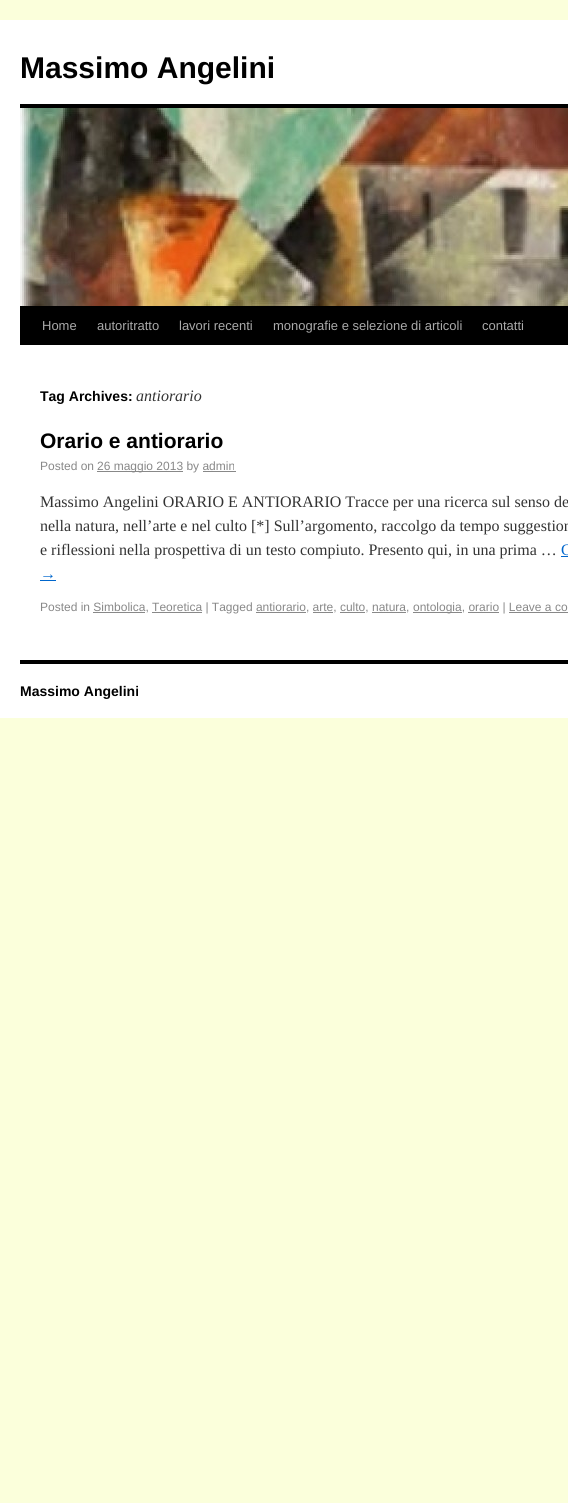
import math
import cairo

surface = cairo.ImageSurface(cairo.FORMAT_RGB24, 568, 1503)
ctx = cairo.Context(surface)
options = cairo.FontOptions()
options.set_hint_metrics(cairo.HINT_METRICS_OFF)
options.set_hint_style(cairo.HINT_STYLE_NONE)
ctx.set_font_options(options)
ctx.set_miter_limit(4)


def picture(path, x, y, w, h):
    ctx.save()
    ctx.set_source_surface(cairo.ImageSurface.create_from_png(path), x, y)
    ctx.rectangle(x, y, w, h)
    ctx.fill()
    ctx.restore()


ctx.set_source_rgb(0.984, 1, 0.859)
ctx.paint()
ctx.set_source_rgb(1, 1, 1)
ctx.rectangle(0, 20, 568, 698)
ctx.fill()
ctx.select_font_face("Liberation Sans", cairo.FONT_SLANT_NORMAL, cairo.FONT_WEIGHT_BOLD)
ctx.set_font_size(30)
ctx.set_source_rgb(0, 0, 0)
ctx.move_to(20, 78)
ctx.show_text("Massimo Angelini")
ctx.rectangle(20, 104, 548, 4)
ctx.fill()
ctx.rectangle(20, 306, 548, 39)
ctx.fill()
picture("img1.png", 20, 108, 548, 198)
ctx.select_font_face("Liberation Sans")
ctx.set_font_size(13)
ctx.set_source_rgb(0.667, 0.667, 0.667)
ctx.move_to(42, 330)
ctx.show_text("Home")
ctx.move_to(97, 330)
ctx.show_text("autoritratto")
ctx.move_to(179, 330)
ctx.show_text("lavori recenti")
ctx.move_to(273, 330)
ctx.show_text("monografie e selezione di articoli")
ctx.move_to(482, 330)
ctx.show_text("contatti")
ctx.select_font_face("Liberation Sans", cairo.FONT_SLANT_NORMAL, cairo.FONT_WEIGHT_BOLD)
ctx.set_font_size(14)
ctx.set_source_rgb(0, 0, 0)
ctx.move_to(40, 401)
ctx.show_text("Tag Archives:")
ctx.select_font_face("Liberation Serif", cairo.FONT_SLANT_ITALIC)
ctx.set_font_size(16)
ctx.set_source_rgb(0.2, 0.2, 0.2)
ctx.move_to(136, 401)
ctx.show_text("antiorario")
ctx.select_font_face("Liberation Sans", cairo.FONT_SLANT_NORMAL, cairo.FONT_WEIGHT_BOLD)
ctx.set_font_size(21)
ctx.set_source_rgb(0, 0, 0)
ctx.move_to(40, 448)
ctx.show_text("Orario e antiorario")
ctx.select_font_face("Liberation Sans")
ctx.set_font_size(12)
ctx.set_source_rgb(0.533, 0.533, 0.533)
ctx.move_to(40, 470)
ctx.show_text("Posted on")
ctx.rectangle(97, 471, 86, 1)
ctx.fill()
ctx.move_to(97, 470)
ctx.show_text("26 maggio 2013 by admin")
ctx.rectangle(203, 471, 33, 1)
ctx.fill()
ctx.select_font_face("Liberation Serif")
ctx.set_font_size(16)
ctx.set_source_rgb(0.2, 0.2, 0.2)
ctx.move_to(40, 507)
ctx.show_text("Massimo Angelini ORARIO E ANTIORARIO Tracce per una ricerca sul senso de")
ctx.move_to(40, 531)
ctx.show_text("nella natura, nell’arte e nel culto [*] Sull’argomento, raccolgo da tempo suggestion")
ctx.move_to(40, 555)
ctx.show_text("e riflessioni nella prospettiva di un testo compiuto. Presento qui, in una prima …")
ctx.set_source_rgb(0, 0.4, 0.8)
ctx.move_to(561, 555)
ctx.show_text("C")
ctx.rectangle(561, 556, 7, 1)
ctx.fill()
ctx.move_to(40, 579)
ctx.show_text("→")
ctx.rectangle(40, 580, 16, 1)
ctx.fill()
ctx.select_font_face("Liberation Sans")
ctx.set_font_size(12)
ctx.set_source_rgb(0.533, 0.533, 0.533)
ctx.move_to(40, 611)
ctx.show_text("Posted in Simbolica, Teoretica | Tagged antiorario, arte, culto, natura,")
ctx.rectangle(93, 612, 52, 1)
ctx.fill()
ctx.rectangle(152, 612, 50, 1)
ctx.fill()
ctx.rectangle(413, 612, 49, 1)
ctx.fill()
ctx.move_to(413, 611)
ctx.show_text("ontologia, orario | Leave a co")
ctx.rectangle(256, 612, 50, 1)
ctx.fill()
ctx.rectangle(313, 612, 20, 1)
ctx.fill()
ctx.rectangle(340, 612, 25, 1)
ctx.fill()
ctx.rectangle(372, 612, 34, 1)
ctx.fill()
ctx.rectangle(468, 612, 31, 1)
ctx.fill()
ctx.rectangle(509, 612, 59, 1)
ctx.fill()
ctx.set_source_rgb(0, 0, 0)
ctx.rectangle(20, 660, 548, 4)
ctx.fill()
ctx.select_font_face("Liberation Sans", cairo.FONT_SLANT_NORMAL, cairo.FONT_WEIGHT_BOLD)
ctx.set_font_size(14)
ctx.move_to(20, 696)
ctx.show_text("Massimo Angelini")
surface.write_to_png("page.png")
